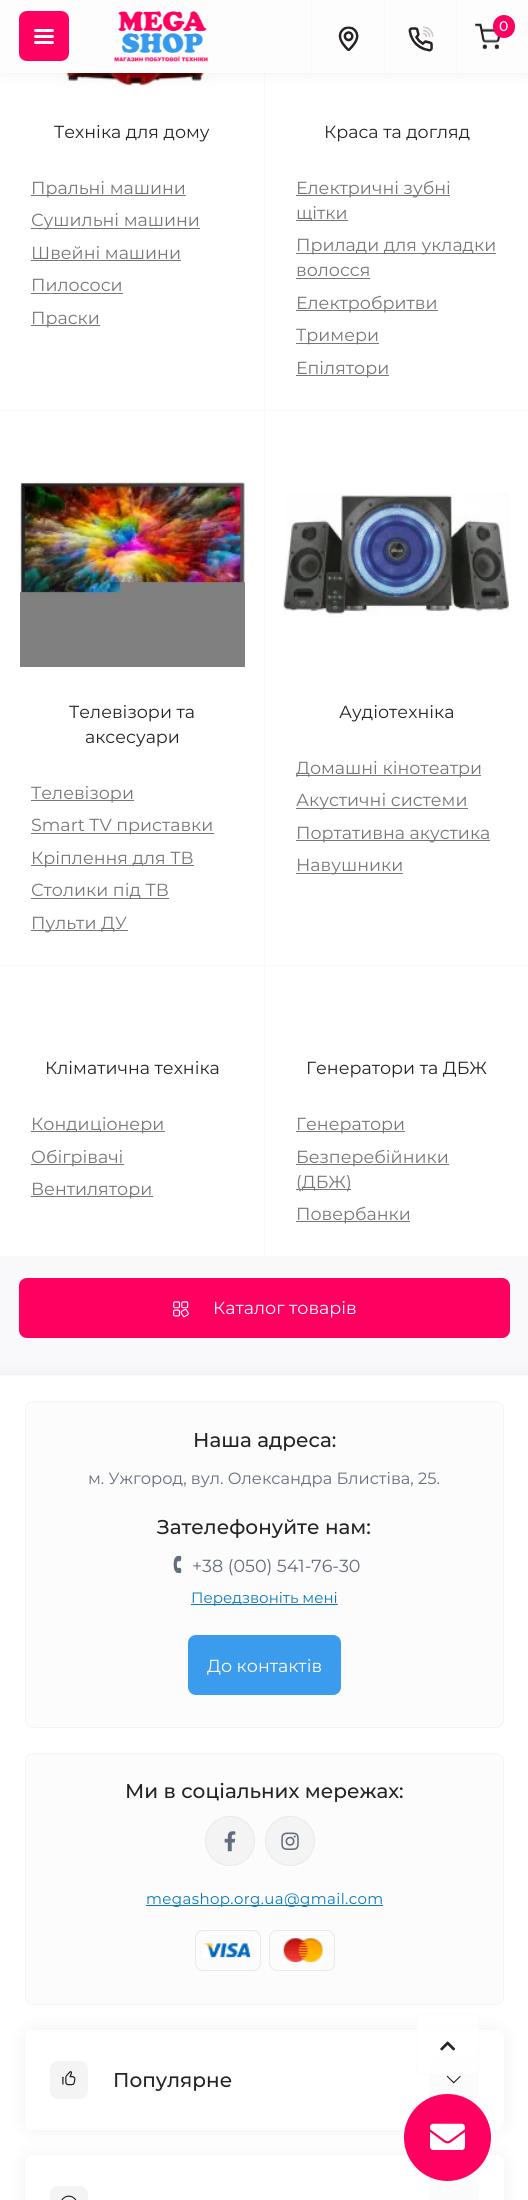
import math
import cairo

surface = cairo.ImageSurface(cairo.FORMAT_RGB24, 528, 2200)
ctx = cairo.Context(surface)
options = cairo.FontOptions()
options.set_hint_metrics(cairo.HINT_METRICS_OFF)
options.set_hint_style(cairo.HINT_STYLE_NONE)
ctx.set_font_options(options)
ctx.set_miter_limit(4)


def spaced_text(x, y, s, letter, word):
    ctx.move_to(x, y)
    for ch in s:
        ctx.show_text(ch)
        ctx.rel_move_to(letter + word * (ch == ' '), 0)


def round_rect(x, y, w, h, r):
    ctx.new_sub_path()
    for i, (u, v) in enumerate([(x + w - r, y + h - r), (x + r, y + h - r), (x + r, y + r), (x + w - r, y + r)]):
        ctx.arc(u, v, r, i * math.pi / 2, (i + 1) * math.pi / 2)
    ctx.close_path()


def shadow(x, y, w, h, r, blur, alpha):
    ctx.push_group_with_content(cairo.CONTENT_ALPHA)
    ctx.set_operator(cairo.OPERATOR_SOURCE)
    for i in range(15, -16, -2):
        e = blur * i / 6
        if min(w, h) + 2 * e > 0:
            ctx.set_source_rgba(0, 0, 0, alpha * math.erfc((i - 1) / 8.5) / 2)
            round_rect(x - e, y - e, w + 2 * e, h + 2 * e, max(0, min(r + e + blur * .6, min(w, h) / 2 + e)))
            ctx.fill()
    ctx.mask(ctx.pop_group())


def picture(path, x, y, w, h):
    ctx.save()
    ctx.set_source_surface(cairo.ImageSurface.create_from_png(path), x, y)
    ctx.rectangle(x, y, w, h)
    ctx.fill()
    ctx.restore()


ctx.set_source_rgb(0.976, 0.976, 0.988)
ctx.paint()
ctx.set_source_rgb(1, 1, 1)
ctx.rectangle(0, 73, 264, 337)
ctx.fill()
picture("img5.png", 61, 73, 149, 14)
ctx.rectangle(265, 73, 263, 337)
ctx.fill()
ctx.set_source_rgb(0, 0, 0)
shadow(0, 0, 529, 73, 0, 9.5, 0.06)
ctx.set_source_rgb(0.992, 0.992, 0.992)
ctx.rectangle(0, 0, 528, 73)
ctx.fill()
ctx.set_source_rgb(1, 0, 0.376)
round_rect(19, 11, 50, 50, 8)
ctx.fill()
ctx.set_source_rgb(1, 1, 1)
round_rect(34, 29, 20, 3, 1.5)
ctx.fill()
round_rect(34, 35, 20, 3, 1.5)
ctx.fill()
round_rect(34, 41, 20, 3, 1.5)
ctx.fill()
ctx.set_source_rgb(0.969, 0.969, 0.969)
ctx.rectangle(311, 0, 1, 73)
ctx.fill()
picture("img1.png", 338, 26, 21, 25)
ctx.rectangle(384, 0, 1, 73)
ctx.fill()
picture("img2.png", 408, 26, 26, 26)
picture("img3.png", 114, 11, 94, 51)
ctx.rectangle(456, 0, 1, 73)
ctx.fill()
picture("img4.png", 475, 23, 25, 27)
ctx.set_source_rgb(1, 0, 0.376)
round_rect(493, 15, 22, 23, 11)
ctx.fill()
ctx.select_font_face("Montserrat Medium")
ctx.set_font_size(14)
ctx.set_source_rgb(1, 1, 1)
ctx.move_to(499, 31)
ctx.show_text("0")
ctx.select_font_face("Montserrat")
ctx.set_font_size(17.5)
ctx.set_source_rgb(0.153, 0.137, 0.137)
ctx.move_to(54, 138)
ctx.show_text("Техніка для дому")
ctx.set_source_rgb(0.467, 0.467, 0.467)
ctx.rectangle(31, 195, 155, 1)
ctx.fill()
ctx.move_to(31, 194)
ctx.show_text("Пральні машини")
ctx.rectangle(31, 228, 169, 1)
ctx.fill()
ctx.move_to(31, 226)
ctx.show_text("Сушильні машини")
ctx.move_to(31, 259)
ctx.show_text("Швейні машини")
ctx.rectangle(31, 260, 150, 1)
ctx.fill()
ctx.move_to(31, 291)
ctx.show_text("Пилососи")
ctx.rectangle(31, 293, 92, 1)
ctx.fill()
ctx.rectangle(31, 325, 69, 1)
ctx.fill()
ctx.move_to(31, 324)
ctx.show_text("Праски")
ctx.set_source_rgb(0.153, 0.137, 0.137)
ctx.move_to(324, 138)
ctx.show_text("Краса та догляд")
ctx.set_source_rgb(0.467, 0.467, 0.467)
ctx.rectangle(296, 195, 154, 1)
ctx.fill()
ctx.move_to(296, 194)
ctx.show_text("Електричні зубні")
ctx.rectangle(296, 220, 52, 1)
ctx.fill()
ctx.move_to(296, 219)
ctx.show_text("щітки")
ctx.rectangle(296, 253, 200, 1)
ctx.fill()
ctx.move_to(296, 251)
ctx.show_text("Прилади для укладки")
ctx.move_to(296, 276)
ctx.show_text("волосся")
ctx.rectangle(296, 278, 74, 1)
ctx.fill()
ctx.rectangle(296, 310, 142, 1)
ctx.fill()
ctx.move_to(296, 309)
ctx.show_text("Електробритви")
ctx.rectangle(296, 343, 83, 1)
ctx.fill()
ctx.move_to(296, 341)
ctx.show_text("Тримери")
ctx.rectangle(296, 375, 93, 1)
ctx.fill()
ctx.move_to(296, 374)
ctx.show_text("Епілятори")
ctx.set_source_rgb(1, 1, 1)
ctx.rectangle(0, 411, 264, 554)
ctx.fill()
picture("img6.png", 20, 481, 225, 186)
ctx.set_source_rgb(0.153, 0.137, 0.137)
ctx.move_to(69, 718)
ctx.show_text("Телевізори та")
ctx.move_to(85, 743)
ctx.show_text("аксесуари")
ctx.set_source_rgb(0.467, 0.467, 0.467)
ctx.rectangle(31, 800, 103, 1)
ctx.fill()
ctx.move_to(31, 799)
ctx.show_text("Телевізори")
ctx.rectangle(31, 833, 183, 1)
ctx.fill()
ctx.move_to(31, 831)
ctx.show_text("Smart TV приставки")
ctx.rectangle(31, 865, 163, 1)
ctx.fill()
ctx.move_to(31, 864)
ctx.show_text("Кріплення для ТВ")
ctx.rectangle(31, 898, 138, 1)
ctx.fill()
ctx.move_to(31, 896)
ctx.show_text("Столики під ТВ")
ctx.rectangle(31, 930, 97, 1)
ctx.fill()
ctx.move_to(31, 929)
ctx.show_text("Пульти ДУ")
ctx.set_source_rgb(1, 1, 1)
ctx.rectangle(265, 411, 263, 554)
ctx.fill()
picture("img7.png", 283, 492, 226, 125)
ctx.set_source_rgb(0.153, 0.137, 0.137)
ctx.move_to(339, 718)
ctx.show_text("Аудіотехніка")
ctx.set_source_rgb(0.467, 0.467, 0.467)
ctx.rectangle(296, 775, 185, 1)
ctx.fill()
ctx.move_to(296, 774)
ctx.show_text("Домашні кінотеатри")
ctx.rectangle(296, 808, 172, 1)
ctx.fill()
ctx.move_to(296, 806)
ctx.show_text("Акустичні системи")
ctx.rectangle(296, 840, 194, 1)
ctx.fill()
ctx.move_to(296, 839)
ctx.show_text("Портативна акустика")
ctx.rectangle(296, 873, 107, 1)
ctx.fill()
ctx.move_to(296, 871)
ctx.show_text("Навушники")
ctx.set_source_rgb(1, 1, 1)
ctx.rectangle(0, 966, 264, 290)
ctx.fill()
ctx.set_source_rgb(0.153, 0.137, 0.137)
ctx.move_to(45, 1074)
ctx.show_text("Кліматична техніка")
ctx.set_source_rgb(0.467, 0.467, 0.467)
ctx.rectangle(31, 1131, 134, 1)
ctx.fill()
ctx.move_to(31, 1130)
ctx.show_text("Кондиціонери")
ctx.rectangle(31, 1164, 93, 1)
ctx.fill()
ctx.move_to(31, 1163)
ctx.show_text("Обігрівачі")
ctx.rectangle(31, 1196, 122, 1)
ctx.fill()
ctx.move_to(31, 1195)
ctx.show_text("Вентилятори")
ctx.set_source_rgb(1, 1, 1)
ctx.rectangle(265, 966, 263, 290)
ctx.fill()
ctx.set_source_rgb(0.153, 0.137, 0.137)
ctx.move_to(306, 1074)
ctx.show_text("Генератори та ДБЖ")
ctx.set_source_rgb(0.467, 0.467, 0.467)
ctx.rectangle(296, 1131, 109, 1)
ctx.fill()
ctx.move_to(296, 1130)
ctx.show_text("Генератори")
ctx.rectangle(296, 1164, 153, 1)
ctx.fill()
ctx.move_to(296, 1163)
ctx.show_text("Безперебійники")
ctx.rectangle(296, 1189, 55, 1)
ctx.fill()
ctx.move_to(296, 1188)
ctx.show_text("(ДБЖ)")
ctx.rectangle(296, 1221, 114, 1)
ctx.fill()
ctx.move_to(296, 1220)
ctx.show_text("Повербанки")
ctx.set_source_rgb(1, 0, 0.376)
round_rect(19, 1278, 491, 60, 8)
ctx.fill()
picture("img8.png", 173, 1301, 16, 17)
ctx.set_source_rgb(1, 1, 1)
ctx.move_to(213, 1314)
ctx.show_text("Каталог товарів")
ctx.set_source_rgb(0, 0, 0)
shadow(0, 1375, 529, 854, 0, 9.5, 0.06)
ctx.set_source_rgb(1, 1, 1)
ctx.rectangle(0, 1376, 528, 824)
ctx.fill()
ctx.set_source_rgb(0.976, 0.976, 0.988)
ctx.rectangle(0, 1375, 528, 1)
ctx.fill()
ctx.set_source_rgb(0.988, 0.988, 0.988)
round_rect(25.5, 1401.5, 478, 326, 7.5)
ctx.fill_preserve()
ctx.set_source_rgb(0.957, 0.957, 0.957)
ctx.set_line_width(1)
ctx.stroke()
ctx.select_font_face("Montserrat Medium")
ctx.set_font_size(20)
ctx.set_source_rgb(0.153, 0.137, 0.137)
ctx.move_to(193, 1447)
ctx.show_text("Наша адреса:")
ctx.select_font_face("Montserrat")
ctx.set_font_size(16.25)
ctx.set_source_rgb(0.396, 0.424, 0.49)
ctx.move_to(88, 1484)
ctx.show_text("м. Ужгород, вул. Олександра Блистіва, 25.")
ctx.select_font_face("Montserrat Medium")
ctx.set_font_size(20)
ctx.set_source_rgb(0.153, 0.137, 0.137)
ctx.move_to(157, 1534)
ctx.show_text("Зателефонуйте нам:")
picture("img9.png", 173, 1555, 9, 19)
ctx.select_font_face("Montserrat")
ctx.set_font_size(17.5)
ctx.set_source_rgb(0.396, 0.424, 0.49)
ctx.move_to(192, 1572)
ctx.show_text("+38 (050) 541-76-30")
ctx.set_source_rgb(0.039, 0.471, 0.749)
ctx.rectangle(191, 1604, 147, 1)
ctx.fill()
ctx.set_font_size(15)
ctx.move_to(191, 1603)
ctx.show_text("Передзвоніть мені")
ctx.set_source_rgb(0.231, 0.608, 0.925)
round_rect(188, 1635, 153, 60, 8)
ctx.fill()
ctx.set_font_size(17.5)
ctx.set_source_rgb(1, 1, 1)
ctx.move_to(207, 1672)
ctx.show_text("До контактів")
ctx.set_source_rgb(0.988, 0.988, 0.988)
round_rect(25.5, 1753.5, 478, 251, 7.5)
ctx.fill_preserve()
ctx.set_source_rgb(0.957, 0.957, 0.957)
ctx.stroke()
ctx.select_font_face("Montserrat Medium")
ctx.set_font_size(20)
ctx.set_source_rgb(0.153, 0.137, 0.137)
ctx.move_to(125, 1798)
ctx.show_text("Ми в соціальних мережах:")
ctx.set_source_rgb(0.957, 0.957, 0.957)
ctx.new_path()
ctx.arc(230, 1841, 24.5, 0, 2 * math.pi)
ctx.fill_preserve()
ctx.set_source_rgb(0.914, 0.914, 0.914)
ctx.stroke()
picture("img10.png", 224, 1831, 12, 21)
ctx.set_source_rgb(0.957, 0.957, 0.957)
ctx.arc(290, 1841, 24.5, 0, 2 * math.pi)
ctx.fill_preserve()
ctx.set_source_rgb(0.914, 0.914, 0.914)
ctx.stroke()
picture("img11.png", 281, 1832, 18, 18)
ctx.set_source_rgb(0.039, 0.471, 0.749)
ctx.rectangle(146, 1905, 237, 1)
ctx.fill()
ctx.select_font_face("Montserrat")
ctx.set_font_size(15)
spaced_text(146, 1904, "megashop.org.ua@gmail.com", 0.4, 0)
picture("img12.png", 203, 1943, 48, 15)
round_rect(195.5, 1930.5, 65, 40, 7.5)
ctx.set_source_rgb(0.914, 0.914, 0.914)
ctx.stroke()
picture("img13.png", 283, 1938, 40, 25)
round_rect(269.5, 1930.5, 65, 40, 7.5)
ctx.stroke()
ctx.set_source_rgb(0, 0, 0)
shadow(25, 2030, 479, 100, 8, 9.5, 0.06)
ctx.set_source_rgb(1, 1, 1)
round_rect(25, 2030, 479, 100, 8)
ctx.fill()
ctx.set_source_rgb(0.957, 0.957, 0.957)
round_rect(50, 2061, 38, 38, 8)
ctx.fill()
picture("img14.png", 61, 2071, 15, 15)
ctx.select_font_face("Montserrat Medium")
ctx.set_font_size(20)
ctx.set_source_rgb(0.153, 0.137, 0.137)
ctx.move_to(113, 2087)
ctx.show_text("Популярне")
ctx.set_source_rgb(0.984, 0.984, 0.984)
round_rect(429, 2055, 50, 50, 8)
ctx.fill()
picture("img15.png", 446, 2075, 15, 9)
ctx.set_source_rgb(0, 0, 0)
shadow(25, 2155, 479, 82, 8, 9.5, 0.06)
ctx.set_source_rgb(1, 1, 1)
round_rect(25, 2155, 479, 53, 8)
ctx.fill()
ctx.set_source_rgb(0.957, 0.957, 0.957)
round_rect(50, 2186, 38, 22, 8)
ctx.fill()
picture("img16.png", 61, 2195, 16, 5)
ctx.set_source_rgb(0.984, 0.984, 0.984)
round_rect(429, 2180, 50, 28, 8)
ctx.fill()
ctx.set_source_rgb(1, 0, 0.376)
ctx.arc(447.5, 2137.5, 43.5, 0, 2 * math.pi)
ctx.fill()
picture("img17.png", 430, 2123, 35, 27)
ctx.set_source_rgba(1, 1, 1, 0.8)
round_rect(416.5, 2013.5, 62, 61, 7.5)
ctx.fill_preserve()
ctx.set_source_rgb(0.984, 0.984, 0.984)
ctx.stroke()
picture("img18.png", 440, 2041, 16, 10)
surface.write_to_png("page.png")
